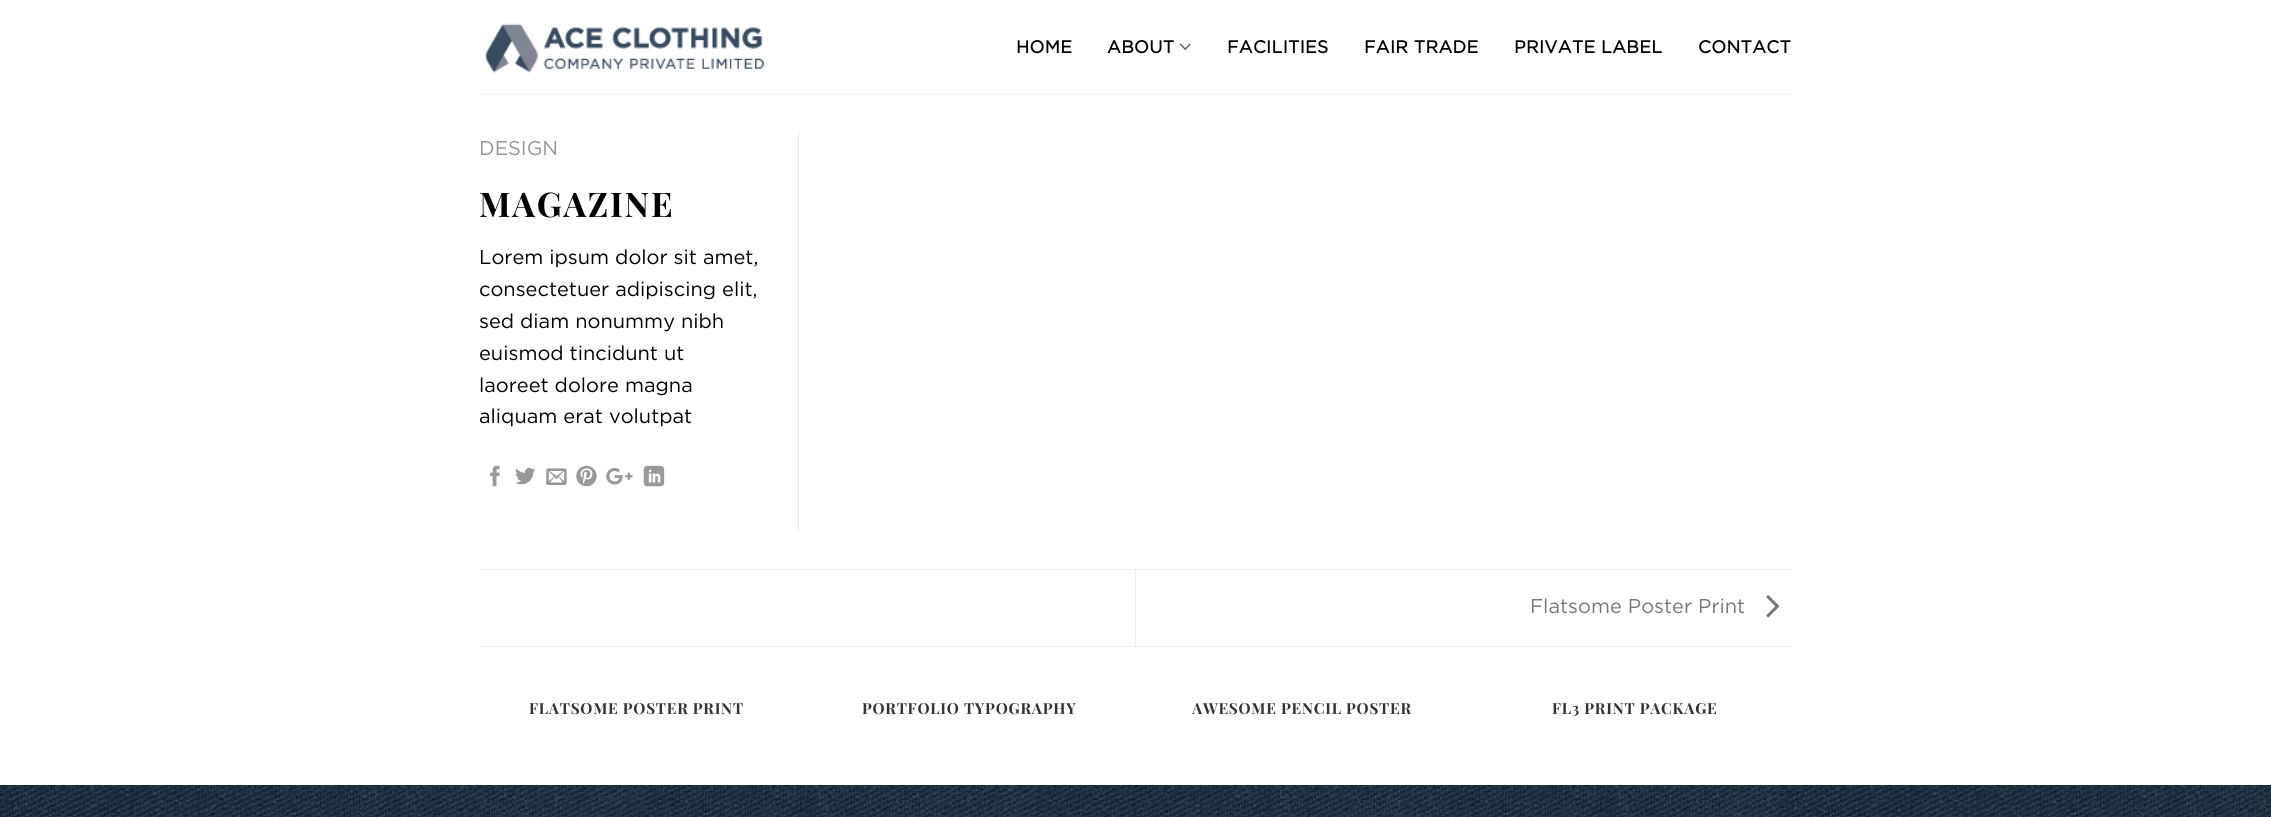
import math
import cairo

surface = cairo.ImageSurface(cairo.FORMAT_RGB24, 2271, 817)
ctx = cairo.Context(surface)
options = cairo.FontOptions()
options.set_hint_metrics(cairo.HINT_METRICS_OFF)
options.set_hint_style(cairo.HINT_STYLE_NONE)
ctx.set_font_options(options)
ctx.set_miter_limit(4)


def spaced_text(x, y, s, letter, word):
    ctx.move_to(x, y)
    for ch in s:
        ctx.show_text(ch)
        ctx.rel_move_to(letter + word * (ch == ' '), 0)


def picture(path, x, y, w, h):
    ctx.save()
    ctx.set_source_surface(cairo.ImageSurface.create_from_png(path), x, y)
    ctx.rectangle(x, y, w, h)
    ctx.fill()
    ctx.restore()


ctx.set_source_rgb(1, 1, 1)
ctx.paint()
picture("img1.png", 485, 23, 279, 50)
ctx.select_font_face("Gotham", cairo.FONT_SLANT_NORMAL, cairo.FONT_WEIGHT_BOLD)
ctx.set_font_size(17.5)
ctx.set_source_rgb(0, 0, 0)
spaced_text(1016, 53, "HOME", 0.3, 0)
spaced_text(1107, 53, "ABOUT", 0.3, 0)
picture("img2.png", 1179, 43, 12, 7)
spaced_text(1227, 53, "FACILITIES", 0.3, 0)
spaced_text(1364, 53, "FAIR TRADE", 0.3, 0)
spaced_text(1514, 53, "PRIVATE LABEL", 0.3, 0)
spaced_text(1698, 53, "CONTACT", 0.3, 0)
ctx.set_source_rgb(0.945, 0.945, 0.945)
ctx.rectangle(480, 94, 1313, 1)
ctx.fill()
ctx.set_source_rgb(0.925, 0.925, 0.925)
ctx.rectangle(798, 131, 1, 400)
ctx.fill()
ctx.select_font_face("Gotham")
ctx.set_font_size(20)
ctx.set_source_rgb(0.58, 0.58, 0.58)
ctx.move_to(479, 155)
ctx.show_text("DESIGN")
ctx.select_font_face("Playfair Display", cairo.FONT_SLANT_NORMAL, cairo.FONT_WEIGHT_BOLD)
ctx.set_font_size(34)
ctx.set_source_rgb(0, 0, 0)
spaced_text(479, 217, "MAGAZINE", 1.75, 0)
ctx.select_font_face("Gotham")
ctx.set_font_size(20)
ctx.move_to(479, 264)
ctx.show_text("Lorem ipsum dolor sit amet,")
ctx.move_to(479, 296)
ctx.show_text("consectetuer adipiscing elit,")
ctx.move_to(479, 328)
ctx.show_text("sed diam nonummy nibh")
ctx.move_to(479, 360)
ctx.show_text("euismod tincidunt ut")
ctx.move_to(479, 392)
ctx.show_text("laoreet dolore magna")
ctx.move_to(479, 423)
ctx.show_text("aliquam erat volutpat")
picture("img3.png", 490, 465, 10, 22)
picture("img4.png", 515, 467, 21, 18)
picture("img5.png", 546, 468, 21, 17)
picture("img6.png", 576, 465, 21, 22)
picture("img7.png", 606, 467, 27, 18)
picture("img8.png", 643, 465, 22, 22)
ctx.set_source_rgb(0.925, 0.925, 0.925)
ctx.rectangle(480, 569, 1313, 1)
ctx.fill()
ctx.rectangle(480, 646, 1313, 1)
ctx.fill()
ctx.rectangle(1135, 570, 1, 76)
ctx.fill()
ctx.set_source_rgb(0.467, 0.467, 0.467)
ctx.move_to(1530, 613)
ctx.show_text("Flatsome Poster Print")
picture("img9.png", 1766, 595, 14, 23)
ctx.select_font_face("Playfair Display", cairo.FONT_SLANT_NORMAL, cairo.FONT_WEIGHT_BOLD)
ctx.set_font_size(15.25)
ctx.set_source_rgb(0.2, 0.2, 0.2)
spaced_text(529, 714, "FLATSOME POSTER PRINT", 0.75, 0)
spaced_text(862, 714, "PORTFOLIO TYPOGRAPHY", 0.75, 0)
spaced_text(1192, 714, "AWESOME PENCIL POSTER", 0.75, 0)
spaced_text(1552, 714, "FL3 PRINT PACKAGE", 0.75, 0)
picture("img10.png", 0, 785, 2271, 32)
ctx.set_source_rgba(0, 0, 0, 0.05)
ctx.rectangle(0, 785, 2271, 1)
ctx.fill()
surface.write_to_png("page.png")
